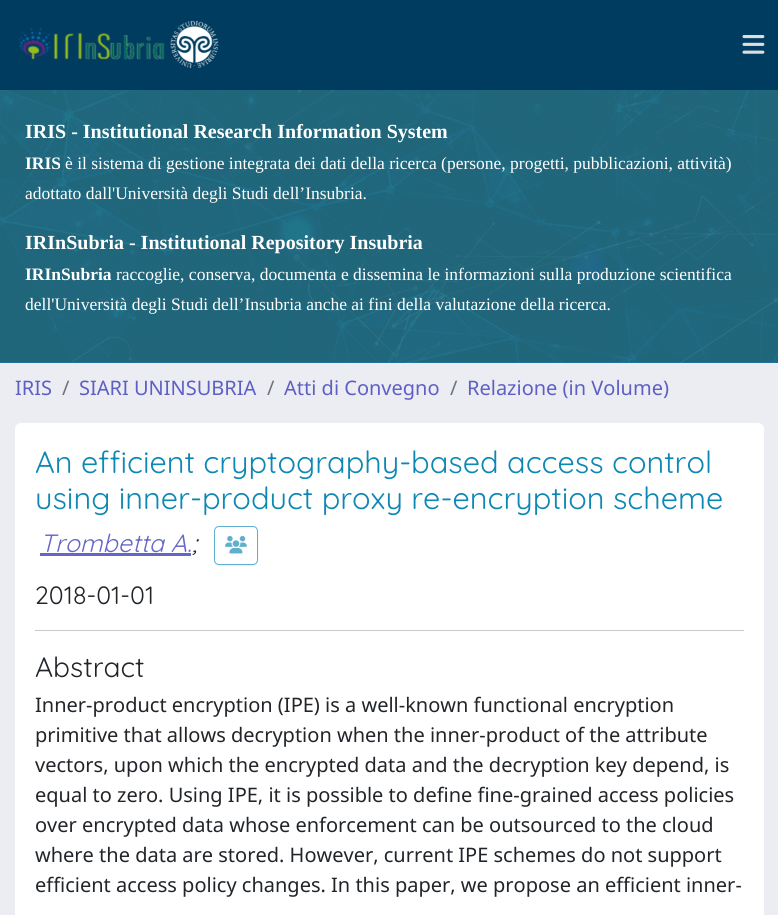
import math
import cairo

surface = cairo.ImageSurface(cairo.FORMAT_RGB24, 778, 915)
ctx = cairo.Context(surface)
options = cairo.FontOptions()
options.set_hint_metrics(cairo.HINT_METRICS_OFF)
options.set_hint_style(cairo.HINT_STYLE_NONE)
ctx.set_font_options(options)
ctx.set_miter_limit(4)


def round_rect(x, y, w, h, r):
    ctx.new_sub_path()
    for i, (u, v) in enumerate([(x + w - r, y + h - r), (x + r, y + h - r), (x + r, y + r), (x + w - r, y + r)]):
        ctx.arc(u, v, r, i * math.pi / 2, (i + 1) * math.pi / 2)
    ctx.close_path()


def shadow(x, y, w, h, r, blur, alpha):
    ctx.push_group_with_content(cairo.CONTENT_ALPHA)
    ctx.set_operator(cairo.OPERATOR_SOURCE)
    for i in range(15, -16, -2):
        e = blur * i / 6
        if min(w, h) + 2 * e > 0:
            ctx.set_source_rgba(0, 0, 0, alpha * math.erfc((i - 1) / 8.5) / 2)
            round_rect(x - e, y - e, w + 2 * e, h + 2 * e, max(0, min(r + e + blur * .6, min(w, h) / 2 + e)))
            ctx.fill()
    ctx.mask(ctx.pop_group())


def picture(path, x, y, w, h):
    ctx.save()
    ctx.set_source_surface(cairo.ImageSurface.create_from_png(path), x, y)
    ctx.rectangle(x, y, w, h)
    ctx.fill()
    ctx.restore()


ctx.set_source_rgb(0.925, 0.929, 0.949)
ctx.paint()
ctx.set_source_rgb(0, 0.235, 0.373)
ctx.rectangle(0, 0, 778, 90)
ctx.fill()
picture("img1.png", 18, 20, 201, 49)
picture("img2.png", 742, 35, 23, 19)
ctx.set_source_rgb(0.051, 0.529, 0.702)
ctx.rectangle(0, 362, 778, 1)
ctx.fill()
picture("img3.png", 0, 90, 778, 273)
ctx.select_font_face("Liberation Serif", cairo.FONT_SLANT_NORMAL, cairo.FONT_WEIGHT_BOLD)
ctx.set_font_size(20)
ctx.set_source_rgb(1, 1, 1)
ctx.move_to(25, 138)
ctx.show_text("IRIS - Institutional Research Information System")
ctx.set_font_size(17.5)
ctx.move_to(25, 169)
ctx.show_text("IRIS")
ctx.select_font_face("Liberation Serif")
ctx.move_to(65, 169)
ctx.show_text("è il sistema di gestione integrata dei dati della ricerca (persone, progetti, pubblicazioni, attività)")
ctx.move_to(25, 199)
ctx.show_text("adottato dall'Università degli Studi dell’Insubria.")
ctx.select_font_face("Liberation Serif", cairo.FONT_SLANT_NORMAL, cairo.FONT_WEIGHT_BOLD)
ctx.set_font_size(20)
ctx.move_to(25, 249)
ctx.show_text("IRInSubria - Institutional Repository Insubria")
ctx.set_font_size(17.5)
ctx.move_to(25, 280)
ctx.show_text("IRInSubria")
ctx.select_font_face("Liberation Serif")
ctx.move_to(116, 280)
ctx.show_text("raccoglie, conserva, documenta e dissemina le informazioni sulla produzione scientifica")
ctx.move_to(25, 310)
ctx.show_text("dell'Università degli Studi dell’Insubria anche ai fini della valutazione della ricerca.")
ctx.select_font_face("Noto Sans")
ctx.set_font_size(20)
ctx.set_source_rgb(0.369, 0.373, 0.773)
ctx.move_to(15, 395)
ctx.show_text("IRIS")
ctx.set_source_rgb(0.424, 0.459, 0.49)
ctx.move_to(62, 395)
ctx.show_text("/")
ctx.set_source_rgb(0.369, 0.373, 0.773)
ctx.move_to(79, 395)
ctx.show_text("SIARI UNINSUBRIA")
ctx.set_source_rgb(0.424, 0.459, 0.49)
ctx.move_to(267, 395)
ctx.show_text("/")
ctx.set_source_rgb(0.369, 0.373, 0.773)
ctx.move_to(284, 395)
ctx.show_text("Atti di Convegno")
ctx.set_source_rgb(0.424, 0.459, 0.49)
ctx.move_to(450, 395)
ctx.show_text("/")
ctx.set_source_rgb(0.369, 0.373, 0.773)
ctx.move_to(467, 395)
ctx.show_text("Relazione (in Volume)")
ctx.set_source_rgb(1, 1, 1)
round_rect(15, 423, 749, 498, 6)
ctx.fill()
ctx.select_font_face("Quicksand Light")
ctx.set_font_size(30.7)
ctx.set_source_rgb(0.051, 0.529, 0.702)
ctx.move_to(35, 473)
ctx.show_text("An efficient cryptography-based access control")
ctx.move_to(35, 509)
ctx.show_text("using inner-product proxy re-encryption scheme")
ctx.select_font_face("Quicksand Light", cairo.FONT_SLANT_ITALIC)
ctx.set_font_size(25)
ctx.set_source_rgb(0.396, 0.4, 0.792)
ctx.move_to(40, 552)
ctx.show_text("Trombetta A.")
ctx.set_source_rgb(0.129, 0.145, 0.161)
ctx.move_to(192, 552)
ctx.show_text(";")
ctx.set_source_rgb(0.396, 0.4, 0.792)
ctx.rectangle(40, 553, 151, 3)
ctx.fill()
ctx.save()
ctx.set_fill_rule(cairo.FILL_RULE_EVEN_ODD)
ctx.new_path()
ctx.move_to(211, 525)
ctx.line_to(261, 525)
ctx.line_to(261, 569)
ctx.line_to(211, 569)
ctx.close_path()
ctx.move_to(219, 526)
ctx.line_to(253, 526)
ctx.curve_to(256, 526, 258, 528, 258, 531)
ctx.line_to(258, 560)
ctx.curve_to(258, 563, 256, 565, 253, 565)
ctx.line_to(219, 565)
ctx.curve_to(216, 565, 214, 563, 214, 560)
ctx.line_to(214, 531)
ctx.curve_to(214, 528, 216, 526, 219, 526)
ctx.close_path()
ctx.clip()
ctx.set_source_rgb(0, 0, 0)
shadow(214, 528, 44, 38, 5, 0.5, 0.07)
ctx.restore()
round_rect(214.5, 526.5, 43, 38, 4.5)
ctx.set_source_rgba(0.051, 0.529, 0.702, 0.66)
ctx.set_line_width(1)
ctx.stroke()
picture("img4.png", 225, 536, 22, 18)
ctx.select_font_face("Quicksand Light")
ctx.set_source_rgb(0.129, 0.145, 0.161)
ctx.move_to(35, 604)
ctx.show_text("2018-01-01")
ctx.set_source_rgb(0.784, 0.788, 0.792)
ctx.rectangle(35, 630, 709, 1)
ctx.fill()
ctx.set_font_size(28)
ctx.set_source_rgb(0.129, 0.145, 0.161)
ctx.move_to(35, 677)
ctx.show_text("Abstract")
ctx.select_font_face("Noto Sans")
ctx.set_font_size(20)
ctx.move_to(35, 712)
ctx.show_text("Inner-product encryption (IPE) is a well-known functional encryption")
ctx.move_to(35, 742)
ctx.show_text("primitive that allows decryption when the inner-product of the attribute")
ctx.move_to(35, 772)
ctx.show_text("vectors, upon which the encrypted data and the decryption key depend, is")
ctx.move_to(35, 802)
ctx.show_text("equal to zero. Using IPE, it is possible to define fine-grained access policies")
ctx.move_to(35, 832)
ctx.show_text("over encrypted data whose enforcement can be outsourced to the cloud")
ctx.move_to(35, 862)
ctx.show_text("where the data are stored. However, current IPE schemes do not support")
ctx.move_to(35, 892)
ctx.show_text("efficient access policy changes. In this paper, we propose an efficient inner-")
surface.write_to_png("page.png")
